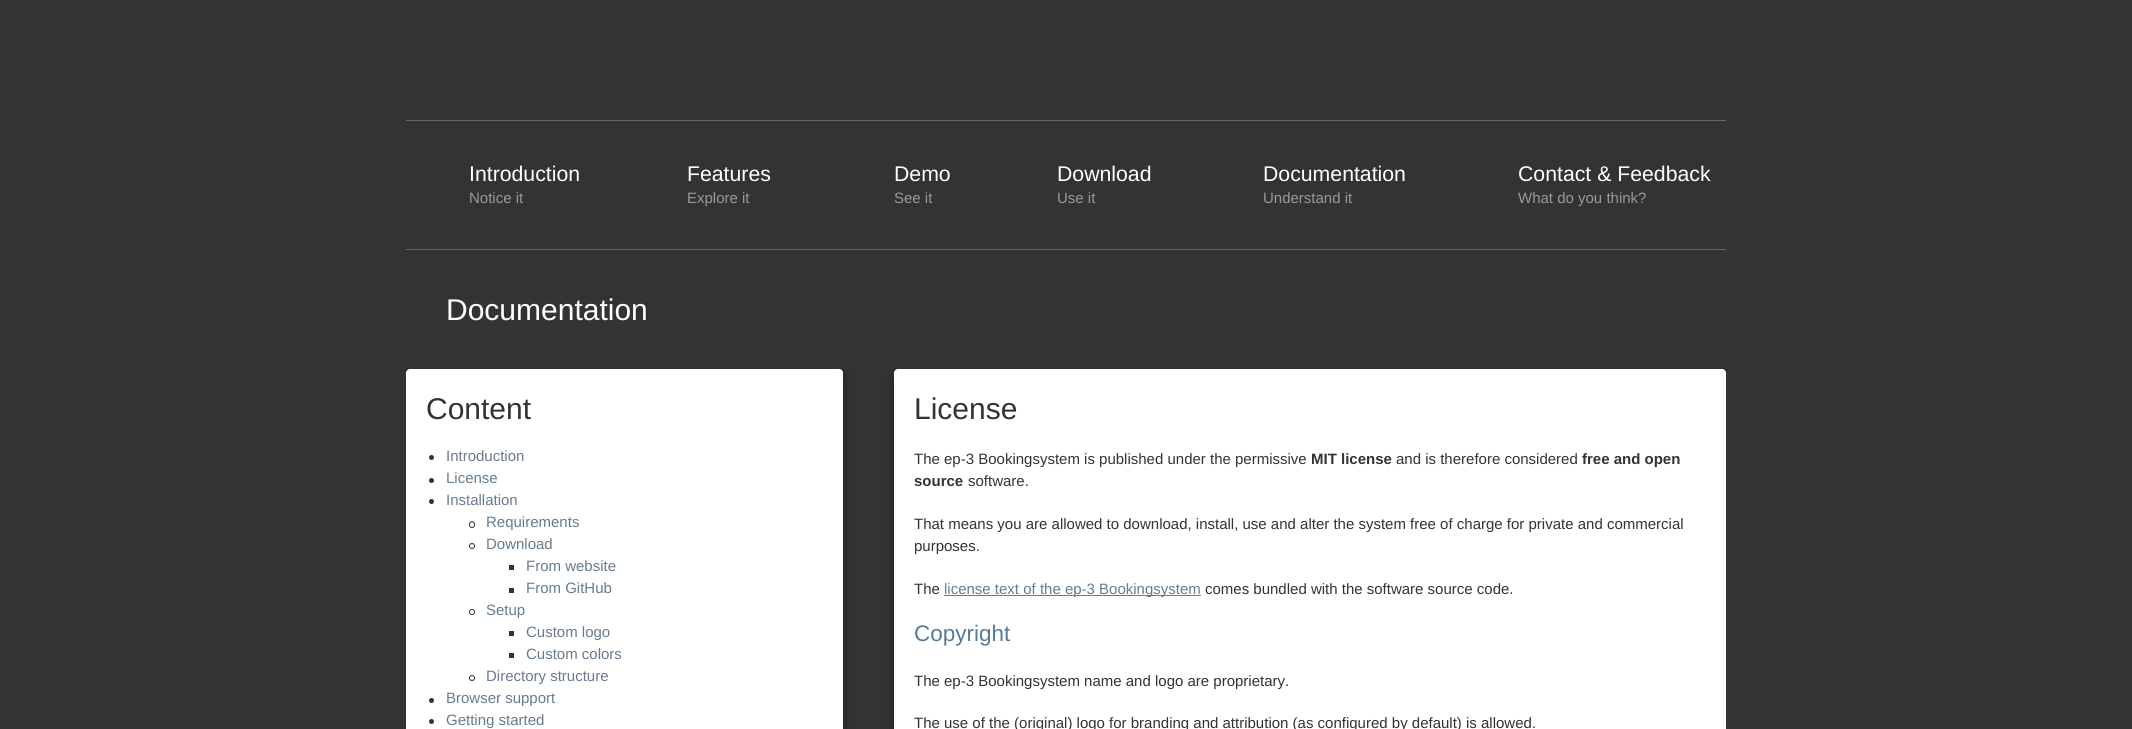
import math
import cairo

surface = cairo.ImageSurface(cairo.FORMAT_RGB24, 2132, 729)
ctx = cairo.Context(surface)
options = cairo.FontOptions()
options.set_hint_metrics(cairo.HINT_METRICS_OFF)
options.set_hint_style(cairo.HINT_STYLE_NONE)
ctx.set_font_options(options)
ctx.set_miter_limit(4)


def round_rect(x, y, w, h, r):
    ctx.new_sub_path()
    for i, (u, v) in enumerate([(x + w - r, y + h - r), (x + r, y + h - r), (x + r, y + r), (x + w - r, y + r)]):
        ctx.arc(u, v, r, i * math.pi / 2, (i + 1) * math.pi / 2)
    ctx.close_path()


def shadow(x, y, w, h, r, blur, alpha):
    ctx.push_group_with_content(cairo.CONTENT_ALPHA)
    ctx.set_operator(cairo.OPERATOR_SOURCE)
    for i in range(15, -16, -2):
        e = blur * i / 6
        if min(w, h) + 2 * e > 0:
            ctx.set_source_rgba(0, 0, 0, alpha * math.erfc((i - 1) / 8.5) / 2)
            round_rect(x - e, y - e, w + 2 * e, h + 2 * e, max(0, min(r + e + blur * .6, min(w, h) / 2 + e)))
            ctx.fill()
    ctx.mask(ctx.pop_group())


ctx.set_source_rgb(0.2, 0.2, 0.2)
ctx.paint()
ctx.set_source_rgb(0.4, 0.4, 0.4)
ctx.rectangle(406, 120, 1320, 1)
ctx.fill()
ctx.select_font_face("Liberation Sans")
ctx.set_font_size(21.25)
ctx.set_source_rgb(1, 1, 1)
ctx.move_to(469, 181)
ctx.show_text("Introduction")
ctx.set_font_size(15)
ctx.set_source_rgb(0.6, 0.6, 0.6)
ctx.move_to(469, 203)
ctx.show_text("Notice it")
ctx.set_font_size(21.25)
ctx.set_source_rgb(1, 1, 1)
ctx.move_to(687, 181)
ctx.show_text("Features")
ctx.set_font_size(15)
ctx.set_source_rgb(0.6, 0.6, 0.6)
ctx.move_to(687, 203)
ctx.show_text("Explore it")
ctx.set_font_size(21.25)
ctx.set_source_rgb(1, 1, 1)
ctx.move_to(894, 181)
ctx.show_text("Demo")
ctx.set_font_size(15)
ctx.set_source_rgb(0.6, 0.6, 0.6)
ctx.move_to(894, 203)
ctx.show_text("See it")
ctx.set_font_size(21.25)
ctx.set_source_rgb(1, 1, 1)
ctx.move_to(1057, 181)
ctx.show_text("Download")
ctx.set_font_size(15)
ctx.set_source_rgb(0.6, 0.6, 0.6)
ctx.move_to(1057, 203)
ctx.show_text("Use it")
ctx.set_font_size(21.25)
ctx.set_source_rgb(1, 1, 1)
ctx.move_to(1263, 181)
ctx.show_text("Documentation")
ctx.set_font_size(15)
ctx.set_source_rgb(0.6, 0.6, 0.6)
ctx.move_to(1263, 203)
ctx.show_text("Understand it")
ctx.set_font_size(21.25)
ctx.set_source_rgb(1, 1, 1)
ctx.move_to(1518, 181)
ctx.show_text("Contact & Feedback")
ctx.set_font_size(15)
ctx.set_source_rgb(0.6, 0.6, 0.6)
ctx.move_to(1518, 203)
ctx.show_text("What do you think?")
ctx.set_source_rgb(0.4, 0.4, 0.4)
ctx.rectangle(406, 249, 1320, 1)
ctx.fill()
ctx.set_font_size(30)
ctx.set_source_rgb(1, 1, 1)
ctx.move_to(446, 320)
ctx.show_text("Documentation")
ctx.save()
ctx.rectangle(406, 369, 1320, 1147)
ctx.clip()
ctx.set_source_rgb(0, 0, 0)
shadow(406, 373, 437, 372, 4, 4, 0.5)
ctx.restore()
round_rect(406, 369, 437, 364, 4)
ctx.fill()
ctx.set_source_rgb(0.2, 0.2, 0.2)
ctx.move_to(426, 419)
ctx.show_text("Content")
ctx.new_path()
ctx.arc(431.5, 457.5, 2.5, 0, 2 * math.pi)
ctx.fill()
ctx.set_font_size(15)
ctx.set_source_rgb(0.4, 0.482, 0.561)
ctx.move_to(446, 461)
ctx.show_text("Introduction")
ctx.set_source_rgb(0.2, 0.2, 0.2)
ctx.new_path()
ctx.arc(431.5, 480.5, 2.5, 0, 2 * math.pi)
ctx.fill()
ctx.set_source_rgb(0.4, 0.482, 0.561)
ctx.move_to(446, 483)
ctx.show_text("License")
ctx.set_source_rgb(0.2, 0.2, 0.2)
ctx.new_path()
ctx.arc(431.5, 501.5, 2.5, 0, 2 * math.pi)
ctx.fill()
ctx.set_source_rgb(0.4, 0.482, 0.561)
ctx.move_to(446, 505)
ctx.show_text("Installation")
round_rect(469.5, 521.5, 5, 6, 2.5)
ctx.set_source_rgb(0.2, 0.2, 0.2)
ctx.set_line_width(1)
ctx.stroke()
ctx.set_source_rgb(0.4, 0.482, 0.561)
ctx.move_to(486, 527)
ctx.show_text("Requirements")
ctx.new_path()
ctx.arc(472, 546, 2.5, 0, 2 * math.pi)
ctx.set_source_rgb(0.2, 0.2, 0.2)
ctx.stroke()
ctx.set_source_rgb(0.4, 0.482, 0.561)
ctx.move_to(486, 549)
ctx.show_text("Download")
ctx.set_source_rgb(0.2, 0.2, 0.2)
ctx.rectangle(509, 565, 5, 5)
ctx.fill()
ctx.set_source_rgb(0.4, 0.482, 0.561)
ctx.move_to(526, 571)
ctx.show_text("From website")
ctx.set_source_rgb(0.2, 0.2, 0.2)
ctx.rectangle(509, 588, 5, 5)
ctx.fill()
ctx.set_source_rgb(0.4, 0.482, 0.561)
ctx.move_to(526, 593)
ctx.show_text("From GitHub")
ctx.new_path()
ctx.arc(472, 612, 2.5, 0, 2 * math.pi)
ctx.set_source_rgb(0.2, 0.2, 0.2)
ctx.stroke()
ctx.set_source_rgb(0.4, 0.482, 0.561)
ctx.move_to(486, 615)
ctx.show_text("Setup")
ctx.set_source_rgb(0.2, 0.2, 0.2)
ctx.rectangle(509, 631, 5, 5)
ctx.fill()
ctx.set_source_rgb(0.4, 0.482, 0.561)
ctx.move_to(526, 637)
ctx.show_text("Custom logo")
ctx.set_source_rgb(0.2, 0.2, 0.2)
ctx.rectangle(509, 653, 5, 5)
ctx.fill()
ctx.set_source_rgb(0.4, 0.482, 0.561)
ctx.move_to(526, 659)
ctx.show_text("Custom colors")
ctx.new_path()
ctx.arc(472, 678, 2.5, 0, 2 * math.pi)
ctx.set_source_rgb(0.2, 0.2, 0.2)
ctx.stroke()
ctx.set_source_rgb(0.4, 0.482, 0.561)
ctx.move_to(486, 681)
ctx.show_text("Directory structure")
ctx.set_source_rgb(0.2, 0.2, 0.2)
ctx.new_path()
ctx.arc(431.5, 700.5, 2.5, 0, 2 * math.pi)
ctx.fill()
ctx.set_source_rgb(0.4, 0.482, 0.561)
ctx.move_to(446, 703)
ctx.show_text("Browser support")
ctx.set_source_rgb(0.2, 0.2, 0.2)
ctx.new_path()
ctx.arc(431.5, 721.5, 2.5, 0, 2 * math.pi)
ctx.fill()
ctx.set_source_rgb(0.4, 0.482, 0.561)
ctx.move_to(446, 725)
ctx.show_text("Getting started")
ctx.save()
ctx.rectangle(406, 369, 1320, 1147)
ctx.clip()
ctx.set_source_rgb(0, 0, 0)
shadow(894, 373, 832, 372, 4, 4, 0.5)
ctx.restore()
ctx.set_source_rgb(1, 1, 1)
round_rect(894, 369, 832, 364, 4)
ctx.fill()
ctx.set_font_size(30)
ctx.set_source_rgb(0.2, 0.2, 0.2)
ctx.move_to(914, 419)
ctx.show_text("License")
ctx.set_font_size(15)
ctx.move_to(914, 464)
ctx.show_text("The ep-3 Bookingsystem is published under the permissive")
ctx.select_font_face("Liberation Sans", cairo.FONT_SLANT_NORMAL, cairo.FONT_WEIGHT_BOLD)
ctx.move_to(1311, 464)
ctx.show_text("MIT license")
ctx.select_font_face("Liberation Sans")
ctx.move_to(1396, 464)
ctx.show_text("and is therefore considered")
ctx.select_font_face("Liberation Sans", cairo.FONT_SLANT_NORMAL, cairo.FONT_WEIGHT_BOLD)
ctx.move_to(1582, 464)
ctx.show_text("free and open")
ctx.move_to(914, 486)
ctx.show_text("source")
ctx.select_font_face("Liberation Sans")
ctx.move_to(968, 486)
ctx.show_text("software.")
ctx.move_to(914, 529)
ctx.show_text("That means you are allowed to download, install, use and alter the system free of charge for private and commercial")
ctx.move_to(914, 551)
ctx.show_text("purposes.")
ctx.move_to(914, 594)
ctx.show_text("The")
ctx.set_source_rgb(0.4, 0.482, 0.561)
ctx.rectangle(944, 595, 257, 1)
ctx.fill()
ctx.move_to(944, 594)
ctx.show_text("license text of the ep-3 Bookingsystem")
ctx.set_source_rgb(0.2, 0.2, 0.2)
ctx.move_to(1205, 594)
ctx.show_text("comes bundled with the software source code.")
ctx.set_font_size(22.5)
ctx.set_source_rgb(0.329, 0.482, 0.592)
ctx.move_to(914, 641)
ctx.show_text("Copyright")
ctx.set_font_size(15)
ctx.set_source_rgb(0.2, 0.2, 0.2)
ctx.move_to(914, 686)
ctx.show_text("The ep-3 Bookingsystem name and logo are proprietary.")
ctx.move_to(914, 728)
ctx.show_text("The use of the (original) logo for branding and attribution (as configured by default) is allowed.")
surface.write_to_png("page.png")
